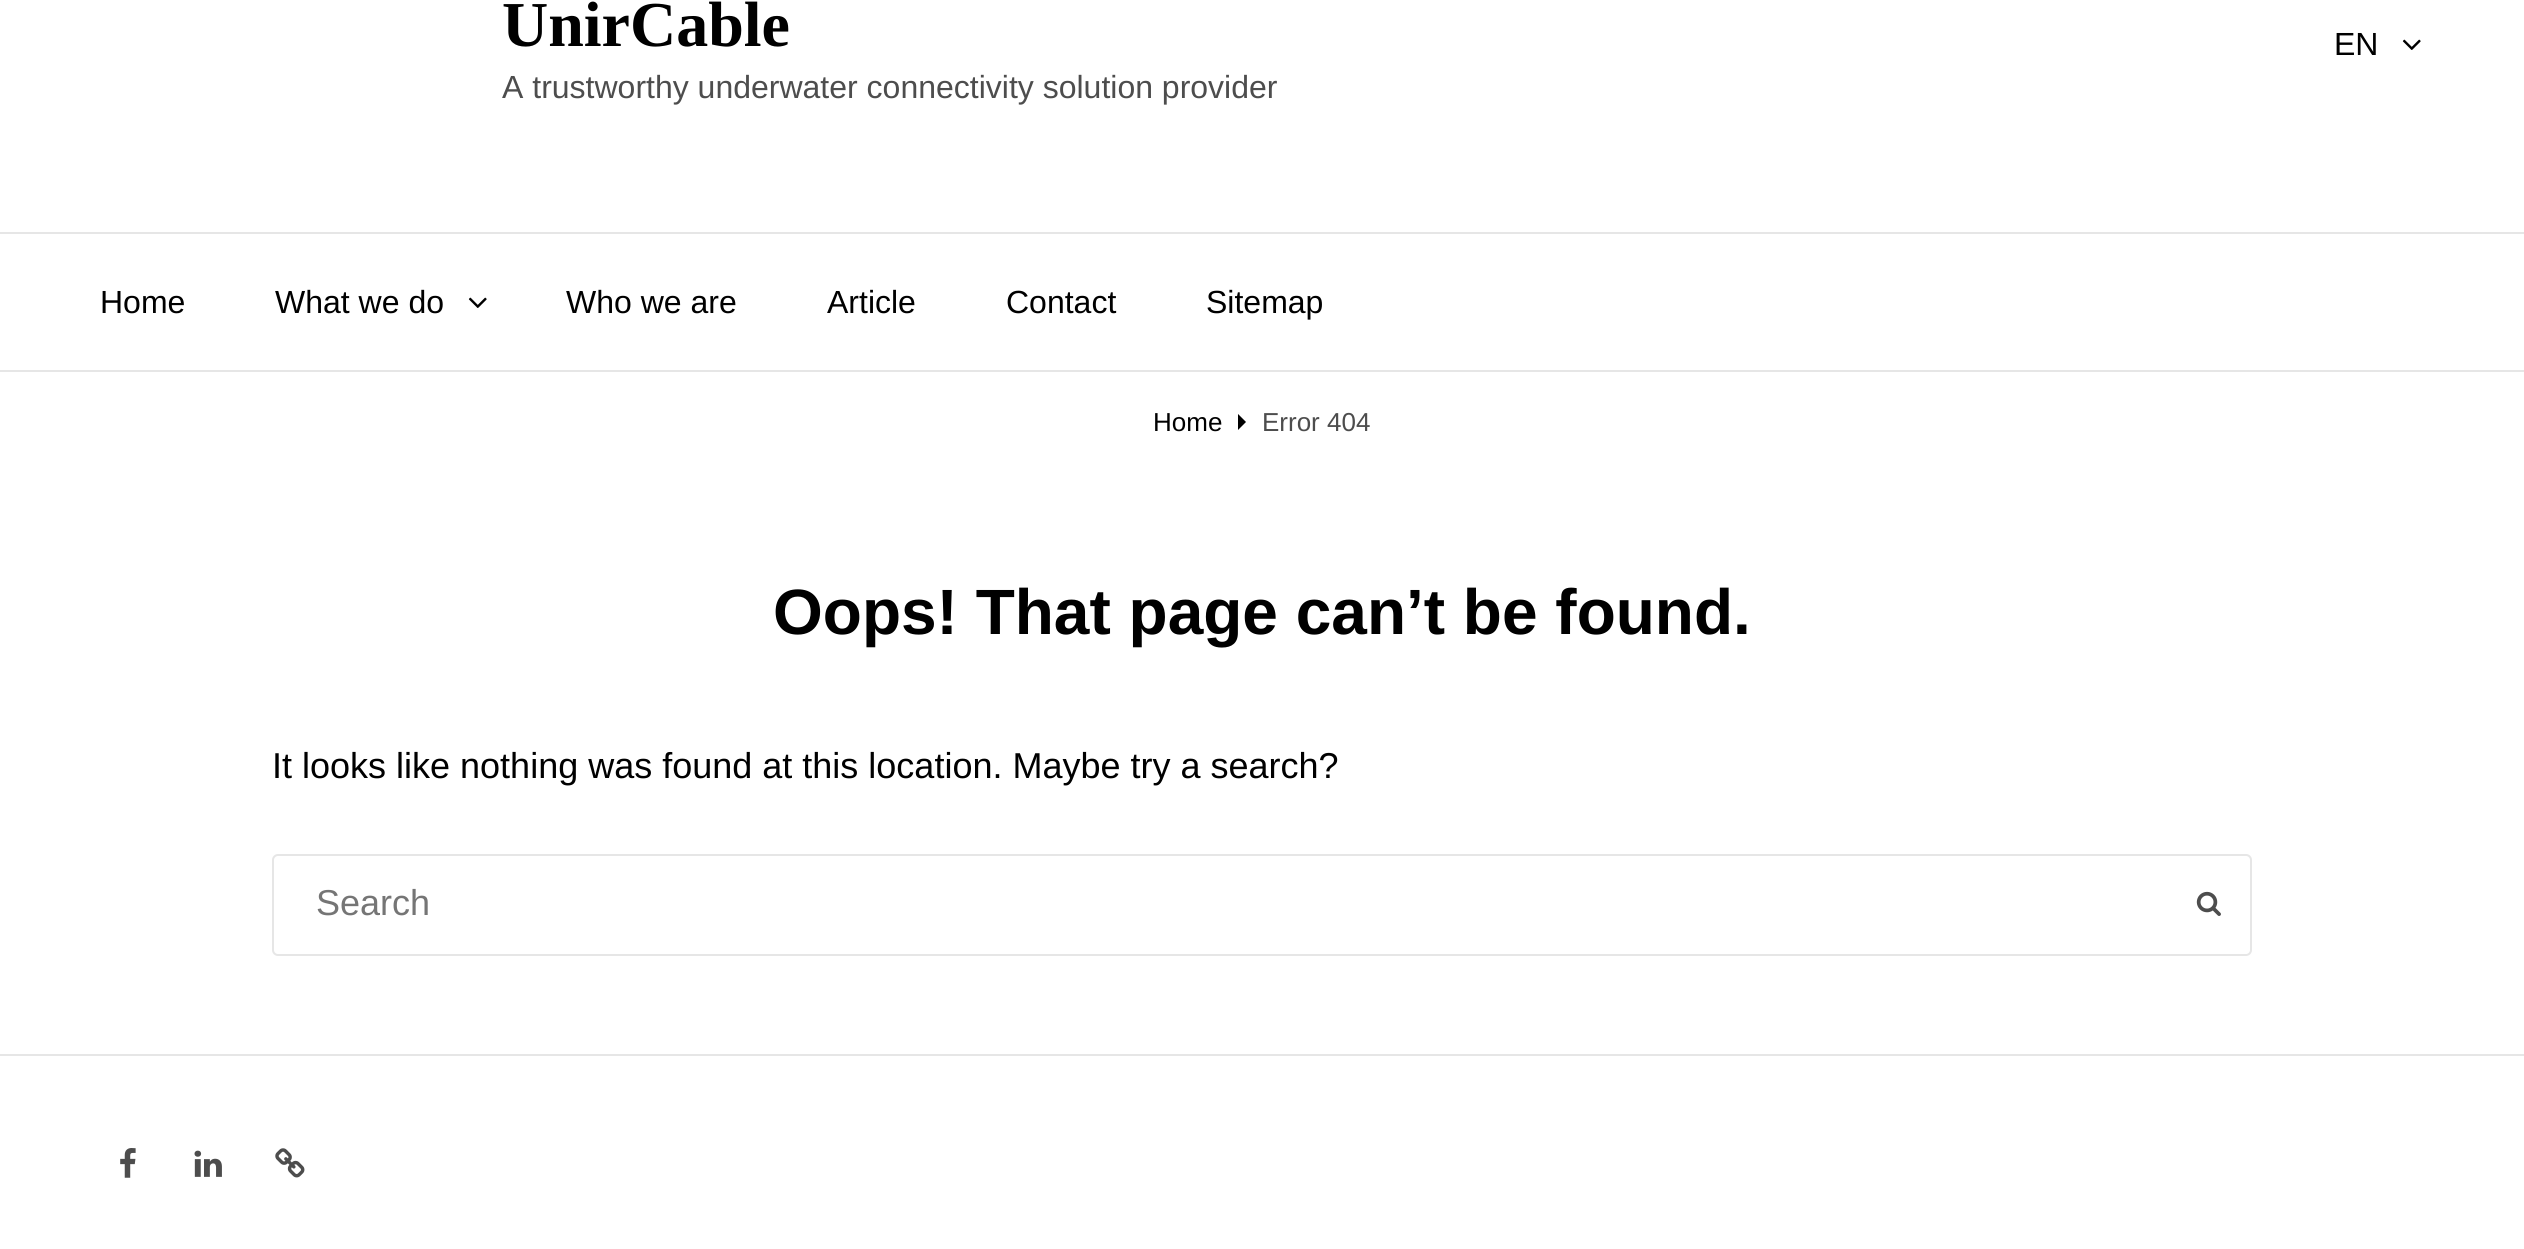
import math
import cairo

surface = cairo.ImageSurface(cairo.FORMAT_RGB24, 2524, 1249)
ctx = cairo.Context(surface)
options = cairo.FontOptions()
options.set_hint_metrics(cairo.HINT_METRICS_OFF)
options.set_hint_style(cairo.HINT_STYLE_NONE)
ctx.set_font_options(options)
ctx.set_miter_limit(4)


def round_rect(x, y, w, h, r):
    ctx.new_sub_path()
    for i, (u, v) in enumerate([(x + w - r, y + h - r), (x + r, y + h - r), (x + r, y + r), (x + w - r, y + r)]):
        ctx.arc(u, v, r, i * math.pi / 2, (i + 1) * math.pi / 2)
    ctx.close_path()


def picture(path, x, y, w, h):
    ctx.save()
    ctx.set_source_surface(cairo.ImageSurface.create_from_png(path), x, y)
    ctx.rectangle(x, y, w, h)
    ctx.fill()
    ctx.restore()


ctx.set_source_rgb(1, 1, 1)
ctx.paint()
ctx.select_font_face("Liberation Serif", cairo.FONT_SLANT_NORMAL, cairo.FONT_WEIGHT_BOLD)
ctx.set_font_size(64)
ctx.set_source_rgb(0, 0, 0)
ctx.move_to(502, 46)
ctx.show_text("UnirCable")
ctx.select_font_face("Liberation Sans")
ctx.set_font_size(32)
ctx.set_source_rgb(0.302, 0.302, 0.302)
ctx.move_to(502, 98)
ctx.show_text("A trustworthy underwater connectivity solution provider")
ctx.set_source_rgb(0, 0, 0)
ctx.move_to(2334, 55)
ctx.show_text("EN")
picture("img1.png", 2402, 39, 19, 11)
ctx.set_source_rgb(0.902, 0.902, 0.902)
ctx.rectangle(0, 232, 2524, 2)
ctx.fill()
ctx.rectangle(0, 370, 2524, 2)
ctx.fill()
ctx.set_source_rgb(0, 0, 0)
ctx.move_to(100, 313)
ctx.show_text("Home")
ctx.move_to(275, 313)
ctx.show_text("What we do")
picture("img1.png", 468, 297, 19, 11)
ctx.move_to(566, 313)
ctx.show_text("Who we are")
ctx.move_to(827, 313)
ctx.show_text("Article")
ctx.move_to(1006, 313)
ctx.show_text("Contact")
ctx.move_to(1206, 313)
ctx.show_text("Sitemap")
ctx.set_font_size(26)
ctx.move_to(1153, 431)
ctx.show_text("Home")
ctx.new_path()
ctx.move_to(1238, 430)
ctx.line_to(1238, 414)
ctx.line_to(1246, 422)
ctx.close_path()
ctx.fill()
ctx.set_source_rgb(0.302, 0.302, 0.302)
ctx.move_to(1262, 431)
ctx.show_text("Error 404")
ctx.set_source_rgb(0.902, 0.902, 0.902)
ctx.rectangle(0, 1054, 2524, 2)
ctx.fill()
ctx.select_font_face("Liberation Sans", cairo.FONT_SLANT_NORMAL, cairo.FONT_WEIGHT_BOLD)
ctx.set_font_size(64)
ctx.set_source_rgb(0, 0, 0)
ctx.move_to(773, 634)
ctx.show_text("Oops! That page can’t be found.")
ctx.select_font_face("Liberation Sans")
ctx.set_font_size(36)
ctx.move_to(272, 778)
ctx.show_text("It looks like nothing was found at this location. Maybe try a search?")
round_rect(273, 855, 1978, 100, 5)
ctx.set_source_rgb(0.902, 0.902, 0.902)
ctx.stroke()
ctx.set_source_rgb(0.459, 0.459, 0.459)
ctx.move_to(316, 915)
ctx.show_text("Search")
picture("img2.png", 2196, 891, 25, 25)
picture("img3.png", 120, 1148, 16, 30)
picture("img4.png", 194, 1150, 28, 27)
picture("img5.png", 275, 1148, 30, 30)
surface.write_to_png("page.png")
